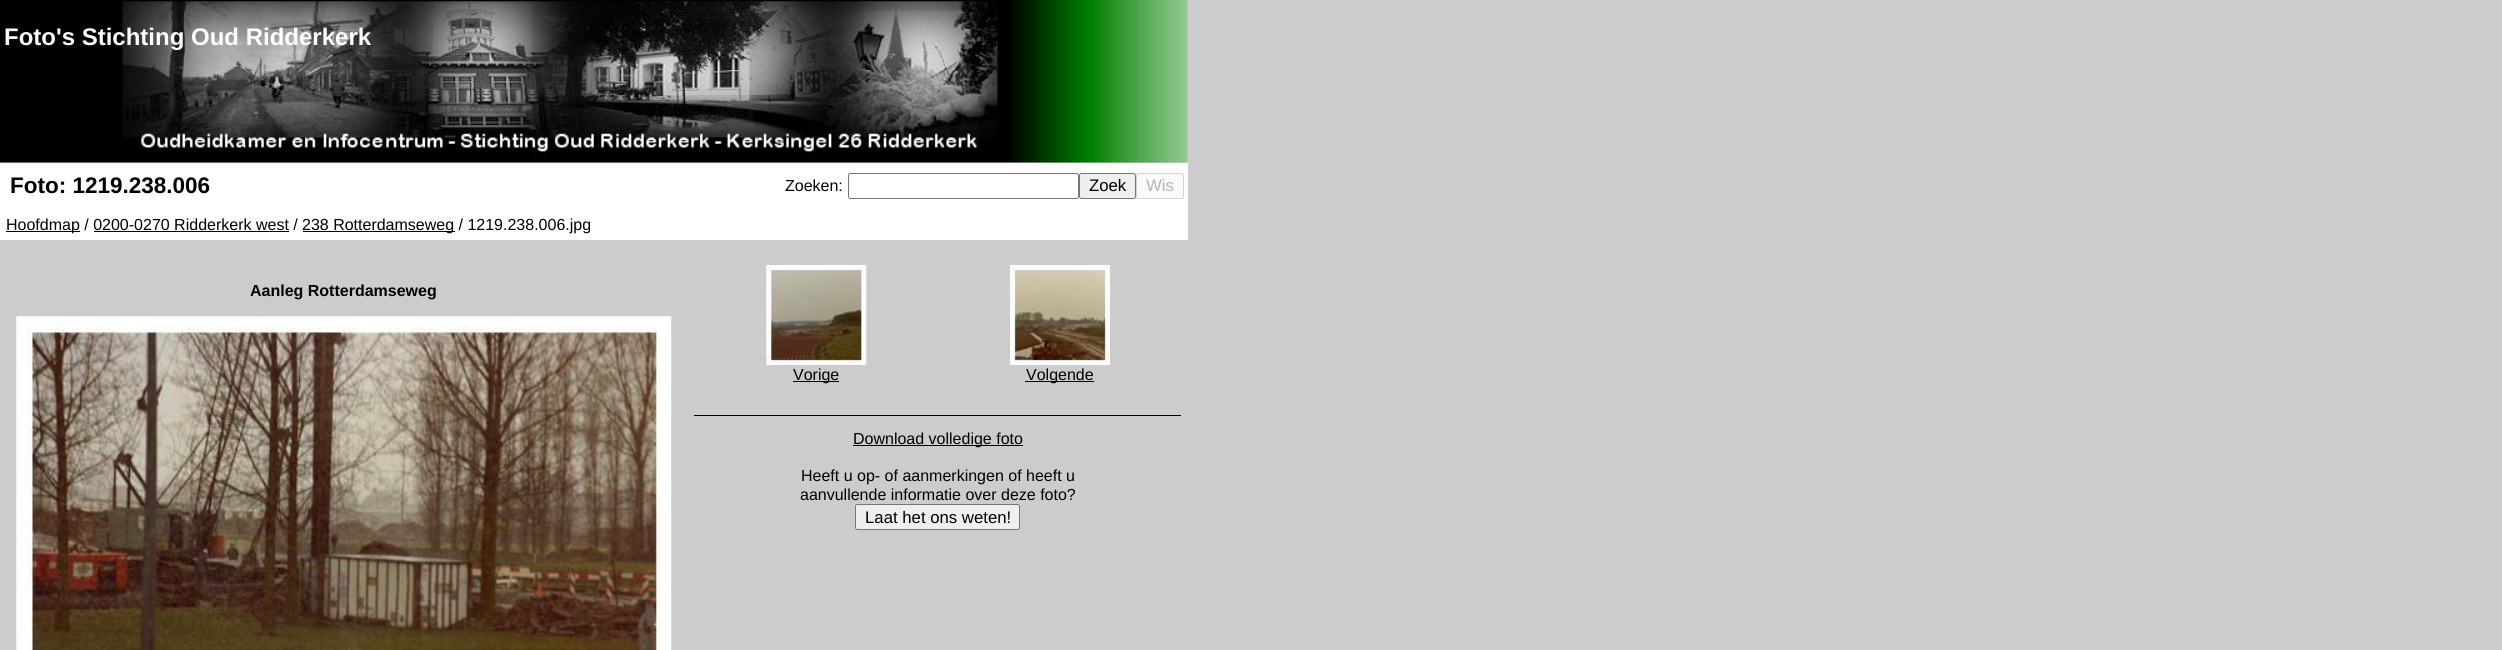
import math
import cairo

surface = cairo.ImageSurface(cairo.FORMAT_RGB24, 2502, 650)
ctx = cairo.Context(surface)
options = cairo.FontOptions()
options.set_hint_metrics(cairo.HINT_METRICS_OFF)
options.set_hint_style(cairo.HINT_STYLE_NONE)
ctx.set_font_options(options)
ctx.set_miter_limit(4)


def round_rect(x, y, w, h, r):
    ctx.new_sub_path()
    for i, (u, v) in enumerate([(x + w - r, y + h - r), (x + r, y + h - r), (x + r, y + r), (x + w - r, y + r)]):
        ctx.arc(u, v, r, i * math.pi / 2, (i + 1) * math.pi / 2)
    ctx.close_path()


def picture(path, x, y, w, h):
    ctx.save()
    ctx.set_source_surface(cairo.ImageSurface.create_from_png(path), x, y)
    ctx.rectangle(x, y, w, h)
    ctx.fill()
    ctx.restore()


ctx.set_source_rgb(0.8, 0.8, 0.8)
ctx.paint()
picture("img1.png", 0, 0, 1188, 163)
ctx.select_font_face("Liberation Sans", cairo.FONT_SLANT_NORMAL, cairo.FONT_WEIGHT_BOLD)
ctx.set_font_size(24)
ctx.set_source_rgb(1, 1, 1)
ctx.move_to(4, 45)
ctx.show_text("Foto's Stichting Oud Ridderkerk")
ctx.rectangle(0, 163, 1188, 77)
ctx.fill()
ctx.set_font_size(22.5)
ctx.set_source_rgb(0, 0, 0)
ctx.move_to(10, 193)
ctx.show_text("Foto: 1219.238.006")
ctx.select_font_face("Liberation Sans")
ctx.set_font_size(16)
ctx.move_to(785, 191)
ctx.show_text("Zoeken:")
round_rect(848.5, 173.5, 230, 25, 2)
ctx.set_source_rgb(0.463, 0.463, 0.463)
ctx.set_line_width(1)
ctx.stroke()
ctx.set_source_rgb(0.937, 0.937, 0.937)
round_rect(1079.5, 173.5, 56, 25, 2)
ctx.fill_preserve()
ctx.set_source_rgb(0.463, 0.463, 0.463)
ctx.stroke()
ctx.set_font_size(16.75)
ctx.set_source_rgb(0, 0, 0)
ctx.move_to(1089, 191)
ctx.show_text("Zoek")
ctx.set_source_rgb(0.98, 0.98, 0.98)
round_rect(1136.5, 173.5, 47, 25, 2)
ctx.fill_preserve()
ctx.set_source_rgb(0.824, 0.824, 0.824)
ctx.stroke()
ctx.set_source_rgb(0.706, 0.706, 0.706)
ctx.move_to(1146, 191)
ctx.show_text("Wis")
ctx.set_source_rgb(0, 0, 0)
ctx.rectangle(6, 231, 74, 1)
ctx.fill()
ctx.set_font_size(16)
ctx.move_to(6, 230)
ctx.show_text("Hoofdmap / 0200-0270 Ridderkerk west /")
ctx.rectangle(303, 231, 152, 1)
ctx.fill()
ctx.move_to(302, 230)
ctx.show_text("238 Rotterdamseweg / 1219.238.006.jpg")
ctx.rectangle(94, 231, 195, 1)
ctx.fill()
ctx.select_font_face("Liberation Sans", cairo.FONT_SLANT_NORMAL, cairo.FONT_WEIGHT_BOLD)
ctx.move_to(250, 296)
ctx.show_text("Aanleg Rotterdamseweg")
picture("img2.png", 16, 316, 656, 334)
picture("img3.png", 766, 265, 101, 100)
ctx.rectangle(793, 381, 46, 1)
ctx.fill()
ctx.select_font_face("Liberation Sans")
ctx.move_to(793, 380)
ctx.show_text("Vorige")
picture("img4.png", 1010, 265, 100, 100)
ctx.rectangle(1025, 381, 69, 1)
ctx.fill()
ctx.move_to(1026, 380)
ctx.show_text("Volgende")
ctx.rectangle(694, 415, 487, 1)
ctx.fill()
ctx.rectangle(853, 445, 170, 1)
ctx.fill()
ctx.move_to(853, 444)
ctx.show_text("Download volledige foto")
ctx.move_to(801, 481)
ctx.show_text("Heeft u op- of aanmerkingen of heeft u")
ctx.move_to(800, 500)
ctx.show_text("aanvullende informatie over deze foto?")
ctx.set_source_rgb(0.937, 0.937, 0.937)
round_rect(855.5, 504.5, 164, 25, 2)
ctx.fill_preserve()
ctx.set_source_rgb(0.463, 0.463, 0.463)
ctx.stroke()
ctx.set_font_size(16.75)
ctx.set_source_rgb(0, 0, 0)
ctx.move_to(865, 523)
ctx.show_text("Laat het ons weten!")
surface.write_to_png("page.png")
